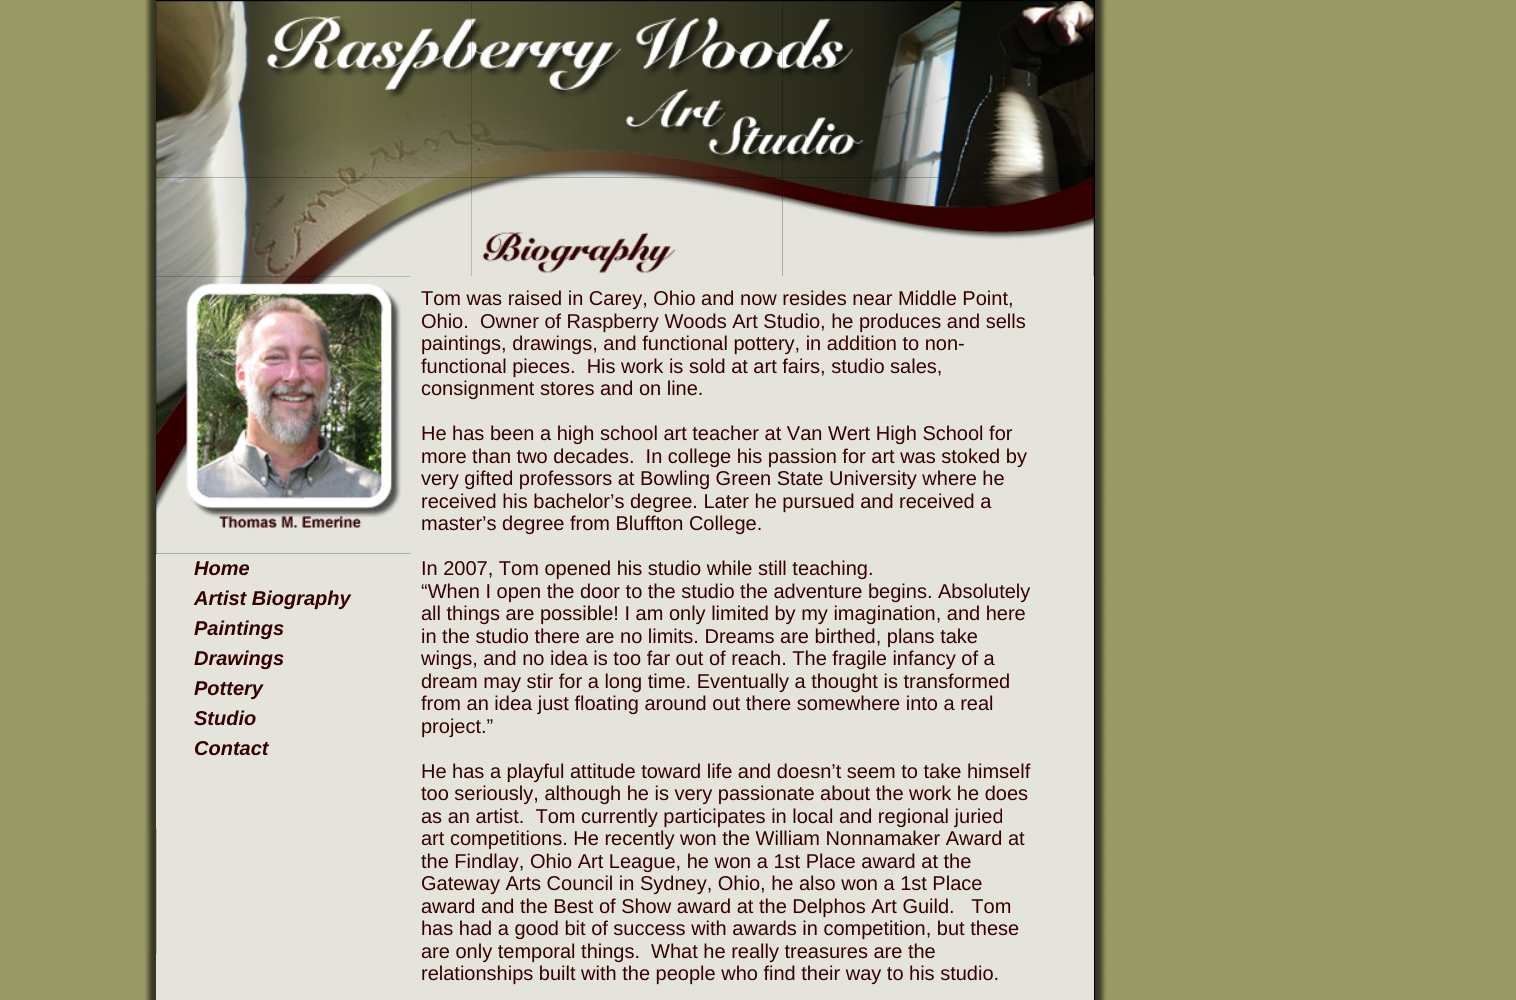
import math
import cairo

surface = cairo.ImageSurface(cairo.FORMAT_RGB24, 1516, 1000)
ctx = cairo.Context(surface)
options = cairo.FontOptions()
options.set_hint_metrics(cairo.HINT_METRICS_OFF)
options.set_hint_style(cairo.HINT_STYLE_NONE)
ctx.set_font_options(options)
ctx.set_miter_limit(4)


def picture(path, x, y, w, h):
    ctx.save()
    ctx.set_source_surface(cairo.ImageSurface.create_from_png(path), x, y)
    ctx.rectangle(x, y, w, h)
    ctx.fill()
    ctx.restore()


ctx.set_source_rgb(0.6, 0.6, 0.4)
ctx.paint()
picture("img1.png", 145, 0, 11, 1000)
ctx.set_source_rgb(0, 0, 0)
ctx.rectangle(156, 0, 939, 1000)
ctx.fill()
ctx.set_source_rgb(0.894, 0.894, 0.863)
ctx.rectangle(156, 554, 254, 446)
ctx.fill()
picture("img2.png", 140, 828, 17, 126)
picture("img3.png", 156, 1, 316, 89)
picture("img4.png", 471, 1, 312, 89)
picture("img5.png", 782, 1, 312, 89)
picture("img6.png", 156, 90, 316, 88)
picture("img7.png", 471, 90, 312, 88)
picture("img8.png", 782, 90, 312, 88)
ctx.rectangle(410, 276, 684, 724)
ctx.fill()
picture("img9.png", 156, 177, 316, 100)
picture("img10.png", 471, 177, 312, 99)
picture("img11.png", 782, 177, 312, 99)
picture("img12.png", 156, 276, 254, 278)
ctx.select_font_face("Liberation Sans", cairo.FONT_SLANT_ITALIC, cairo.FONT_WEIGHT_BOLD)
ctx.set_font_size(20)
ctx.set_source_rgb(0.208, 0, 0)
ctx.move_to(194, 575)
ctx.show_text("Home")
ctx.move_to(194, 605)
ctx.show_text("Artist Biography")
ctx.move_to(194, 635)
ctx.show_text("Paintings")
ctx.move_to(194, 665)
ctx.show_text("Drawings")
ctx.move_to(194, 695)
ctx.show_text("Pottery")
ctx.move_to(194, 725)
ctx.show_text("Studio")
ctx.move_to(194, 755)
ctx.show_text("Contact")
picture("img13.png", 1095, 0, 12, 1000)
ctx.select_font_face("Liberation Sans")
ctx.move_to(421, 305)
ctx.show_text("Tom was raised in Carey, Ohio and now resides near Middle Point,")
ctx.move_to(421, 328)
ctx.show_text("Ohio.  Owner of Raspberry Woods Art Studio, he produces and sells")
ctx.move_to(421, 350)
ctx.show_text("paintings, drawings, and functional pottery, in addition to non-")
ctx.move_to(421, 373)
ctx.show_text("functional pieces.  His work is sold at art fairs, studio sales,")
ctx.move_to(421, 395)
ctx.show_text("consignment stores and on line.")
ctx.move_to(421, 440)
ctx.show_text("He has been a high school art teacher at Van Wert High School for")
ctx.move_to(421, 463)
ctx.show_text("more than two decades.  In college his passion for art was stoked by")
ctx.move_to(421, 485)
ctx.show_text("very gifted professors at Bowling Green State University where he")
ctx.move_to(421, 508)
ctx.show_text("received his bachelor’s degree. Later he pursued and received a")
ctx.move_to(421, 530)
ctx.show_text("master’s degree from Bluffton College.")
ctx.move_to(421, 575)
ctx.show_text("In 2007, Tom opened his studio while still teaching.")
ctx.move_to(421, 598)
ctx.show_text("“When I open the door to the studio the adventure begins. Absolutely")
ctx.move_to(421, 620)
ctx.show_text("all things are possible! I am only limited by my imagination, and here")
ctx.move_to(421, 643)
ctx.show_text("in the studio there are no limits. Dreams are birthed, plans take")
ctx.move_to(421, 665)
ctx.show_text("wings, and no idea is too far out of reach. The fragile infancy of a")
ctx.move_to(421, 688)
ctx.show_text("dream may stir for a long time. Eventually a thought is transformed")
ctx.move_to(421, 710)
ctx.show_text("from an idea just floating around out there somewhere into a real")
ctx.move_to(421, 733)
ctx.show_text("project.”")
ctx.move_to(421, 778)
ctx.show_text("He has a playful attitude toward life and doesn’t seem to take himself")
ctx.move_to(421, 800)
ctx.show_text("too seriously, although he is very passionate about the work he does")
ctx.move_to(421, 823)
ctx.show_text("as an artist.  Tom currently participates in local and regional juried")
ctx.move_to(421, 845)
ctx.show_text("art competitions. He recently won the William Nonnamaker Award at")
ctx.move_to(421, 868)
ctx.show_text("the Findlay, Ohio Art League, he won a 1st Place award at the")
ctx.move_to(421, 890)
ctx.show_text("Gateway Arts Council in Sydney, Ohio, he also won a 1st Place")
ctx.move_to(421, 913)
ctx.show_text("award and the Best of Show award at the Delphos Art Guild.   Tom")
ctx.move_to(421, 935)
ctx.show_text("has had a good bit of success with awards in competition, but these")
ctx.move_to(421, 958)
ctx.show_text("are only temporal things.  What he really treasures are the")
ctx.move_to(421, 980)
ctx.show_text("relationships built with the people who find their way to his studio.")
surface.write_to_png("page.png")
